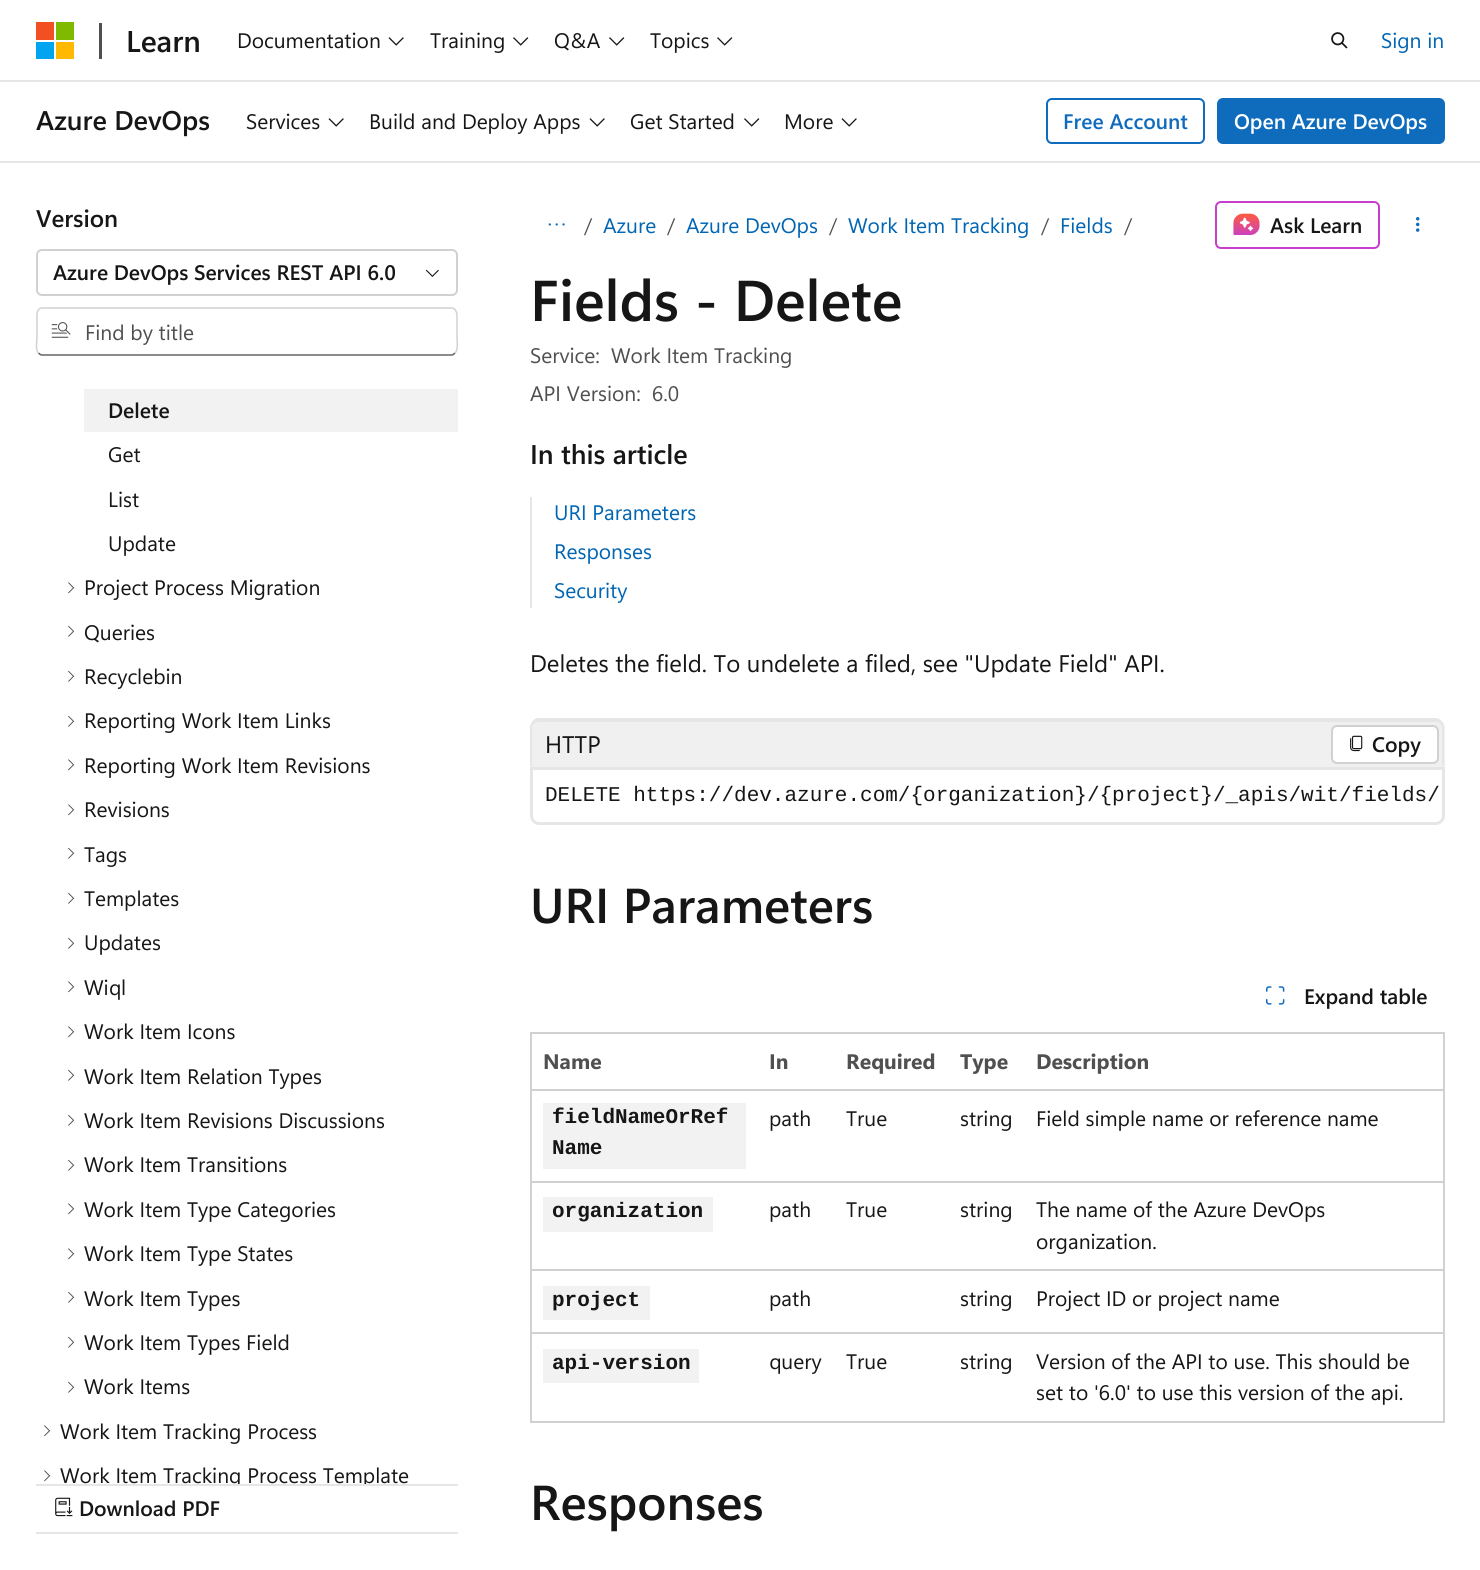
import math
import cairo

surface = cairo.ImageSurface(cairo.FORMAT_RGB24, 1480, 1570)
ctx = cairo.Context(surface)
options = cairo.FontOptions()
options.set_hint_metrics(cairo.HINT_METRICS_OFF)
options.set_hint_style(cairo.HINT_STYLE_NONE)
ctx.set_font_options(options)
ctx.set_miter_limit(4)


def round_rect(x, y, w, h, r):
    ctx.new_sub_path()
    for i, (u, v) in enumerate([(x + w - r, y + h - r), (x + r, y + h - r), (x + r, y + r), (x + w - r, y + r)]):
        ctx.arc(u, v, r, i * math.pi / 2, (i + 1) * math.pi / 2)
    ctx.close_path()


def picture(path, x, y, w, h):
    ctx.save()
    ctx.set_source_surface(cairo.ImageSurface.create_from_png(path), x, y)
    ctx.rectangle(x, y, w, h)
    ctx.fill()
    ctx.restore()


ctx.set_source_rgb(1, 1, 1)
ctx.paint()
ctx.set_source_rgb(0.902, 0.902, 0.902)
ctx.rectangle(0, 80, 1480, 2)
ctx.fill()
ctx.set_source_rgb(0.949, 0.314, 0.133)
ctx.rectangle(36, 22, 18, 18)
ctx.fill()
ctx.set_source_rgb(0.498, 0.729, 0)
ctx.rectangle(56, 22, 18, 18)
ctx.fill()
ctx.set_source_rgb(0, 0.643, 0.937)
ctx.rectangle(36, 42, 18, 17)
ctx.fill()
ctx.set_source_rgb(1, 0.725, 0)
ctx.rectangle(56, 42, 18, 17)
ctx.fill()
ctx.set_source_rgb(0.314, 0.314, 0.314)
ctx.rectangle(99, 23, 3, 36)
ctx.fill()
ctx.select_font_face("Segoe UI SemiBold")
ctx.set_font_size(30)
ctx.set_source_rgb(0.086, 0.086, 0.086)
ctx.move_to(126, 52)
ctx.show_text("Learn")
ctx.select_font_face("Segoe UI")
ctx.set_font_size(21)
ctx.move_to(237, 48)
ctx.show_text("Documentation")
picture("img1.png", 388, 37, 16, 9)
ctx.move_to(430, 48)
ctx.show_text("Training")
picture("img2.png", 513, 37, 16, 9)
ctx.move_to(554, 48)
ctx.show_text("Q&A")
picture("img2.png", 609, 37, 16, 9)
ctx.move_to(650, 48)
ctx.show_text("Topics")
picture("img2.png", 717, 37, 16, 9)
picture("img3.png", 1331, 32, 17, 17)
ctx.set_source_rgb(0, 0.396, 0.702)
ctx.move_to(1381, 48)
ctx.show_text("Sign in")
ctx.set_source_rgb(0.902, 0.902, 0.902)
ctx.rectangle(0, 161, 1480, 2)
ctx.fill()
ctx.select_font_face("Segoe UI SemiBold")
ctx.set_font_size(27)
ctx.set_source_rgb(0.086, 0.086, 0.086)
ctx.move_to(36, 130)
ctx.show_text("Azure DevOps")
ctx.select_font_face("Segoe UI")
ctx.set_font_size(21)
ctx.move_to(246, 129)
ctx.show_text("Services")
picture("img1.png", 328, 118, 16, 9)
ctx.move_to(369, 129)
ctx.show_text("Build and Deploy Apps")
picture("img1.png", 589, 118, 16, 9)
ctx.move_to(630, 129)
ctx.show_text("Get Started")
picture("img2.png", 744, 118, 16, 9)
ctx.move_to(784, 129)
ctx.show_text("More")
picture("img1.png", 841, 118, 16, 9)
round_rect(1047, 99, 157, 44, 5)
ctx.set_source_rgb(0.059, 0.424, 0.741)
ctx.stroke()
ctx.select_font_face("Segoe UI SemiBold")
ctx.move_to(1063, 129)
ctx.show_text("Free Account")
round_rect(1218, 99, 226, 44, 5)
ctx.fill_preserve()
ctx.stroke()
ctx.set_source_rgb(1, 1, 1)
ctx.move_to(1234, 129)
ctx.show_text("Open Azure DevOps")
ctx.set_font_size(24)
ctx.set_source_rgb(0.086, 0.086, 0.086)
ctx.move_to(36, 227)
ctx.show_text("Version")
round_rect(37, 250, 420, 45, 5)
ctx.set_source_rgb(0.82, 0.82, 0.82)
ctx.stroke()
ctx.set_font_size(21)
ctx.set_source_rgb(0.086, 0.086, 0.086)
ctx.move_to(53, 280)
ctx.show_text("Azure DevOps Services REST API 6.0")
picture("img4.png", 425, 269, 14, 8)
ctx.new_path()
ctx.move_to(455, 353)
ctx.curve_to(454, 354, 453, 355, 451.5, 355)
ctx.line_to(42, 355)
ctx.curve_to(40.5, 355, 39.5, 354, 38.5, 353)
ctx.set_source_rgb(0.38, 0.38, 0.38)
ctx.set_line_width(1.5)
ctx.stroke()
ctx.new_path()
ctx.move_to(38.5, 353)
ctx.curve_to(35, 350, 37, 341, 37, 337.5)
ctx.line_to(37, 319.5)
ctx.curve_to(37, 315.5, 36, 308.5, 42, 308)
ctx.line_to(451.5, 308)
ctx.curve_to(457.5, 308.5, 457, 315.5, 457, 319.5)
ctx.line_to(457, 337.5)
ctx.curve_to(457, 341, 458.5, 350, 455, 353)
ctx.set_source_rgb(0.82, 0.82, 0.82)
ctx.stroke()
picture("img5.png", 51, 322, 20, 16)
ctx.select_font_face("Segoe UI")
ctx.set_source_rgb(0.314, 0.314, 0.314)
ctx.move_to(85, 340)
ctx.show_text("Find by title")
ctx.set_source_rgb(0.949, 0.949, 0.949)
ctx.rectangle(84, 389, 374, 43)
ctx.fill()
ctx.select_font_face("Segoe UI SemiBold")
ctx.set_source_rgb(0.086, 0.086, 0.086)
ctx.move_to(108, 418)
ctx.show_text("Delete")
ctx.select_font_face("Segoe UI")
ctx.move_to(108, 462)
ctx.show_text("Get")
ctx.move_to(108, 507)
ctx.show_text("List")
ctx.move_to(108, 551)
ctx.show_text("Update")
picture("img6.png", 68, 582, 7, 12)
ctx.move_to(84, 595)
ctx.show_text("Project Process Migration")
picture("img7.png", 68, 625, 7, 12)
ctx.move_to(84, 640)
ctx.show_text("Queries")
picture("img7.png", 68, 670, 7, 12)
ctx.move_to(84, 684)
ctx.show_text("Recyclebin")
picture("img7.png", 68, 715, 7, 12)
ctx.move_to(84, 728)
ctx.show_text("Reporting Work Item Links")
picture("img6.png", 68, 759, 7, 12)
ctx.move_to(84, 773)
ctx.show_text("Reporting Work Item Revisions")
picture("img6.png", 68, 804, 7, 12)
ctx.move_to(84, 817)
ctx.show_text("Revisions")
picture("img7.png", 68, 847, 7, 12)
ctx.move_to(84, 862)
ctx.show_text("Tags")
picture("img7.png", 68, 892, 7, 12)
ctx.move_to(84, 906)
ctx.show_text("Templates")
picture("img7.png", 68, 937, 7, 12)
ctx.move_to(84, 950)
ctx.show_text("Updates")
picture("img6.png", 68, 981, 7, 12)
ctx.move_to(84, 995)
ctx.show_text("Wiql")
picture("img6.png", 68, 1026, 7, 12)
ctx.move_to(84, 1039)
ctx.show_text("Work Item Icons")
picture("img7.png", 68, 1069, 7, 12)
ctx.move_to(84, 1084)
ctx.show_text("Work Item Relation Types")
picture("img7.png", 68, 1114, 7, 12)
ctx.move_to(84, 1128)
ctx.show_text("Work Item Revisions Discussions")
picture("img7.png", 68, 1159, 7, 12)
ctx.move_to(84, 1172)
ctx.show_text("Work Item Transitions")
picture("img6.png", 68, 1203, 7, 12)
ctx.move_to(84, 1217)
ctx.show_text("Work Item Type Categories")
picture("img6.png", 68, 1248, 7, 12)
ctx.move_to(84, 1261)
ctx.show_text("Work Item Type States")
picture("img7.png", 68, 1291, 7, 12)
ctx.move_to(84, 1306)
ctx.show_text("Work Item Types")
picture("img7.png", 68, 1336, 7, 12)
ctx.move_to(84, 1350)
ctx.show_text("Work Item Types Field")
picture("img7.png", 68, 1381, 7, 12)
ctx.move_to(84, 1394)
ctx.show_text("Work Items")
picture("img6.png", 44, 1425, 7, 12)
ctx.move_to(60, 1439)
ctx.show_text("Work Item Tracking Process")
picture("img6.png", 44, 1470, 7, 12)
ctx.save()
ctx.rectangle(36, 368, 422, 1116)
ctx.clip()
ctx.move_to(60, 1483)
ctx.show_text("Work Item Tracking Process Template")
ctx.restore()
ctx.set_source_rgb(0.902, 0.902, 0.902)
ctx.rectangle(36, 1484, 422, 2)
ctx.fill()
ctx.rectangle(36, 1532, 422, 2)
ctx.fill()
picture("img8.png", 55, 1497, 18, 20)
ctx.select_font_face("Segoe UI SemiBold")
ctx.set_source_rgb(0.086, 0.086, 0.086)
ctx.move_to(79, 1516)
ctx.show_text("Download PDF")
picture("img9.png", 548, 223, 17, 3)
ctx.select_font_face("Segoe UI")
ctx.set_source_rgb(0.314, 0.314, 0.314)
ctx.move_to(584, 233)
ctx.show_text("/")
ctx.set_source_rgb(0, 0.396, 0.702)
ctx.move_to(603, 233)
ctx.show_text("Azure")
ctx.set_source_rgb(0.314, 0.314, 0.314)
ctx.move_to(667, 233)
ctx.show_text("/")
ctx.set_source_rgb(0, 0.396, 0.702)
ctx.move_to(686, 233)
ctx.show_text("Azure DevOps")
ctx.set_source_rgb(0.314, 0.314, 0.314)
ctx.move_to(829, 233)
ctx.show_text("/")
ctx.set_source_rgb(0, 0.396, 0.702)
ctx.move_to(848, 233)
ctx.show_text("Work Item Tracking")
ctx.set_source_rgb(0.314, 0.314, 0.314)
ctx.move_to(1041, 233)
ctx.show_text("/")
ctx.set_source_rgb(0, 0.396, 0.702)
ctx.move_to(1060, 233)
ctx.show_text("Fields")
ctx.set_source_rgb(0.314, 0.314, 0.314)
ctx.move_to(1124, 233)
ctx.show_text("/")
round_rect(1216, 202, 163, 46, 5)
ctx.set_source_rgb(0.78, 0.243, 0.8)
ctx.set_line_width(2)
ctx.stroke()
picture("img10.png", 1233, 213, 27, 22)
ctx.select_font_face("Segoe UI SemiBold")
ctx.set_source_rgb(0.086, 0.086, 0.086)
ctx.move_to(1270, 233)
ctx.show_text("Ask Learn")
picture("img11.png", 1415, 217, 5, 15)
ctx.set_font_size(57.5)
ctx.move_to(530, 321)
ctx.show_text("Fields - Delete")
ctx.select_font_face("Segoe UI")
ctx.set_font_size(21)
ctx.set_source_rgb(0.314, 0.314, 0.314)
ctx.move_to(530, 363)
ctx.show_text("Service:")
ctx.move_to(611, 363)
ctx.show_text("Work Item Tracking")
ctx.move_to(530, 401)
ctx.show_text("API Version:")
ctx.move_to(652, 401)
ctx.show_text("6.0")
ctx.select_font_face("Segoe UI SemiBold")
ctx.set_font_size(27)
ctx.set_source_rgb(0.086, 0.086, 0.086)
ctx.move_to(530, 464)
ctx.show_text("In this article")
ctx.set_source_rgb(0.902, 0.902, 0.902)
ctx.rectangle(530, 497, 2, 111)
ctx.fill()
ctx.select_font_face("Segoe UI")
ctx.set_font_size(21)
ctx.set_source_rgb(0, 0.396, 0.702)
ctx.move_to(554, 520)
ctx.show_text("URI Parameters")
ctx.move_to(554, 559)
ctx.show_text("Responses")
ctx.move_to(554, 598)
ctx.show_text("Security")
ctx.set_font_size(24)
ctx.set_source_rgb(0.086, 0.086, 0.086)
ctx.move_to(530, 672)
ctx.show_text("Deletes the field. To undelete a filed, see \"Update Field\" API.")
ctx.set_source_rgb(0.941, 0.941, 0.941)
ctx.new_path()
ctx.move_to(539, 719)
ctx.line_to(1436, 719)
ctx.curve_to(1441, 719, 1445, 723, 1445, 728)
ctx.line_to(1445, 767)
ctx.line_to(530, 767)
ctx.line_to(530, 728)
ctx.curve_to(530, 723, 534, 719, 539, 719)
ctx.close_path()
ctx.fill()
ctx.set_source_rgb(0.902, 0.902, 0.902)
ctx.set_fill_rule(cairo.FILL_RULE_EVEN_ODD)
ctx.new_path()
ctx.move_to(538, 718)
ctx.line_to(1436, 718)
ctx.curve_to(1440, 718, 1444, 723, 1444, 728)
ctx.line_to(1444, 766)
ctx.line_to(530, 766)
ctx.line_to(530, 728)
ctx.curve_to(530, 723, 534, 718, 538, 718)
ctx.close_path()
ctx.move_to(538, 722)
ctx.line_to(1436, 722)
ctx.curve_to(1439, 722, 1442, 724, 1442, 728)
ctx.line_to(1442, 766)
ctx.line_to(532, 766)
ctx.line_to(532, 728)
ctx.curve_to(532, 724, 535, 722, 538, 722)
ctx.close_path()
ctx.fill()
ctx.set_source_rgb(0.086, 0.086, 0.086)
ctx.move_to(545, 753)
ctx.show_text("HTTP")
ctx.set_source_rgb(1, 1, 1)
round_rect(1332, 726, 106, 37, 5)
ctx.fill_preserve()
ctx.set_source_rgb(0.82, 0.82, 0.82)
ctx.stroke()
picture("img12.png", 1350, 735, 13, 17)
ctx.select_font_face("Segoe UI SemiBold")
ctx.set_font_size(21)
ctx.set_source_rgb(0.086, 0.086, 0.086)
ctx.move_to(1372, 752)
ctx.show_text("Copy")
ctx.new_path()
ctx.move_to(531.5, 768.5)
ctx.line_to(1443.5, 768.5)
ctx.line_to(1443.5, 816)
ctx.curve_to(1443.5, 820, 1440, 823.5, 1436, 823.5)
ctx.line_to(539, 823.5)
ctx.curve_to(535, 823.5, 531.5, 820, 531.5, 816)
ctx.close_path()
ctx.set_source_rgb(0.902, 0.902, 0.902)
ctx.set_line_width(3)
ctx.stroke()
ctx.select_font_face("Liberation Mono")
ctx.set_source_rgb(0.086, 0.086, 0.086)
ctx.move_to(545, 801)
ctx.show_text("DELETE https://dev.azure.com/{organization}/{project}/_apis/wit/fields/")
ctx.select_font_face("Segoe UI SemiBold")
ctx.set_font_size(49)
ctx.move_to(530, 923)
ctx.show_text("URI Parameters")
picture("img13.png", 1266, 986, 19, 19)
ctx.set_font_size(21)
ctx.move_to(1304, 1004)
ctx.show_text("Expand table")
ctx.set_source_rgb(0.82, 0.82, 0.82)
ctx.rectangle(530, 1032, 915, 2)
ctx.fill()
ctx.rectangle(1443, 1032, 2, 390)
ctx.fill()
ctx.rectangle(530, 1421, 915, 2)
ctx.fill()
ctx.rectangle(530, 1032, 2, 390)
ctx.fill()
ctx.select_font_face("Segoe UI", cairo.FONT_SLANT_NORMAL, cairo.FONT_WEIGHT_BOLD)
ctx.set_source_rgb(0.314, 0.314, 0.314)
ctx.move_to(543, 1069)
ctx.show_text("Name")
ctx.move_to(769, 1069)
ctx.show_text("In")
ctx.move_to(846, 1069)
ctx.show_text("Required")
ctx.move_to(960, 1069)
ctx.show_text("Type")
ctx.move_to(1036, 1069)
ctx.show_text("Description")
ctx.set_source_rgb(0.949, 0.949, 0.949)
ctx.rectangle(543, 1103, 203, 66)
ctx.fill()
ctx.select_font_face("Liberation Mono", cairo.FONT_SLANT_NORMAL, cairo.FONT_WEIGHT_BOLD)
ctx.set_source_rgb(0.086, 0.086, 0.086)
ctx.move_to(552, 1123)
ctx.show_text("fieldNameOrRef")
ctx.move_to(552, 1154)
ctx.show_text("Name")
ctx.select_font_face("Segoe UI")
ctx.move_to(769, 1126)
ctx.show_text("path")
ctx.move_to(846, 1126)
ctx.show_text("True")
ctx.move_to(960, 1126)
ctx.show_text("string")
ctx.set_source_rgb(0.82, 0.82, 0.82)
ctx.rectangle(530, 1089, 915, 2)
ctx.fill()
ctx.set_source_rgb(0.086, 0.086, 0.086)
ctx.move_to(1036, 1126)
ctx.show_text("Field simple name or reference name")
ctx.set_source_rgb(0.949, 0.949, 0.949)
ctx.rectangle(543, 1197, 170, 35)
ctx.fill()
ctx.select_font_face("Liberation Mono", cairo.FONT_SLANT_NORMAL, cairo.FONT_WEIGHT_BOLD)
ctx.set_source_rgb(0.086, 0.086, 0.086)
ctx.move_to(552, 1217)
ctx.show_text("organization")
ctx.select_font_face("Segoe UI")
ctx.move_to(769, 1217)
ctx.show_text("path")
ctx.move_to(846, 1217)
ctx.show_text("True")
ctx.move_to(960, 1217)
ctx.show_text("string")
ctx.set_source_rgb(0.82, 0.82, 0.82)
ctx.rectangle(530, 1181, 915, 2)
ctx.fill()
ctx.set_source_rgb(0.086, 0.086, 0.086)
ctx.move_to(1036, 1217)
ctx.show_text("The name of the Azure DevOps")
ctx.move_to(1036, 1249)
ctx.show_text("organization.")
ctx.set_source_rgb(0.949, 0.949, 0.949)
ctx.rectangle(543, 1286, 107, 34)
ctx.fill()
ctx.select_font_face("Liberation Mono", cairo.FONT_SLANT_NORMAL, cairo.FONT_WEIGHT_BOLD)
ctx.set_source_rgb(0.086, 0.086, 0.086)
ctx.move_to(552, 1306)
ctx.show_text("project")
ctx.select_font_face("Segoe UI")
ctx.move_to(769, 1306)
ctx.show_text("path")
ctx.move_to(960, 1306)
ctx.show_text("string")
ctx.set_source_rgb(0.82, 0.82, 0.82)
ctx.rectangle(530, 1269, 915, 2)
ctx.fill()
ctx.set_source_rgb(0.086, 0.086, 0.086)
ctx.move_to(1036, 1306)
ctx.show_text("Project ID or project name")
ctx.set_source_rgb(0.949, 0.949, 0.949)
ctx.rectangle(543, 1349, 156, 34)
ctx.fill()
ctx.select_font_face("Liberation Mono", cairo.FONT_SLANT_NORMAL, cairo.FONT_WEIGHT_BOLD)
ctx.set_source_rgb(0.086, 0.086, 0.086)
ctx.move_to(552, 1369)
ctx.show_text("api-version")
ctx.select_font_face("Segoe UI")
ctx.move_to(769, 1369)
ctx.show_text("query")
ctx.move_to(846, 1369)
ctx.show_text("True")
ctx.move_to(960, 1369)
ctx.show_text("string")
ctx.set_source_rgb(0.82, 0.82, 0.82)
ctx.rectangle(530, 1332, 915, 2)
ctx.fill()
ctx.set_source_rgb(0.086, 0.086, 0.086)
ctx.move_to(1036, 1369)
ctx.show_text("Version of the API to use. This should be")
ctx.move_to(1036, 1400)
ctx.show_text("set to '6.0' to use this version of the api.")
ctx.select_font_face("Segoe UI SemiBold")
ctx.set_font_size(49)
ctx.move_to(530, 1520)
ctx.show_text("Responses")
surface.write_to_png("page.png")
